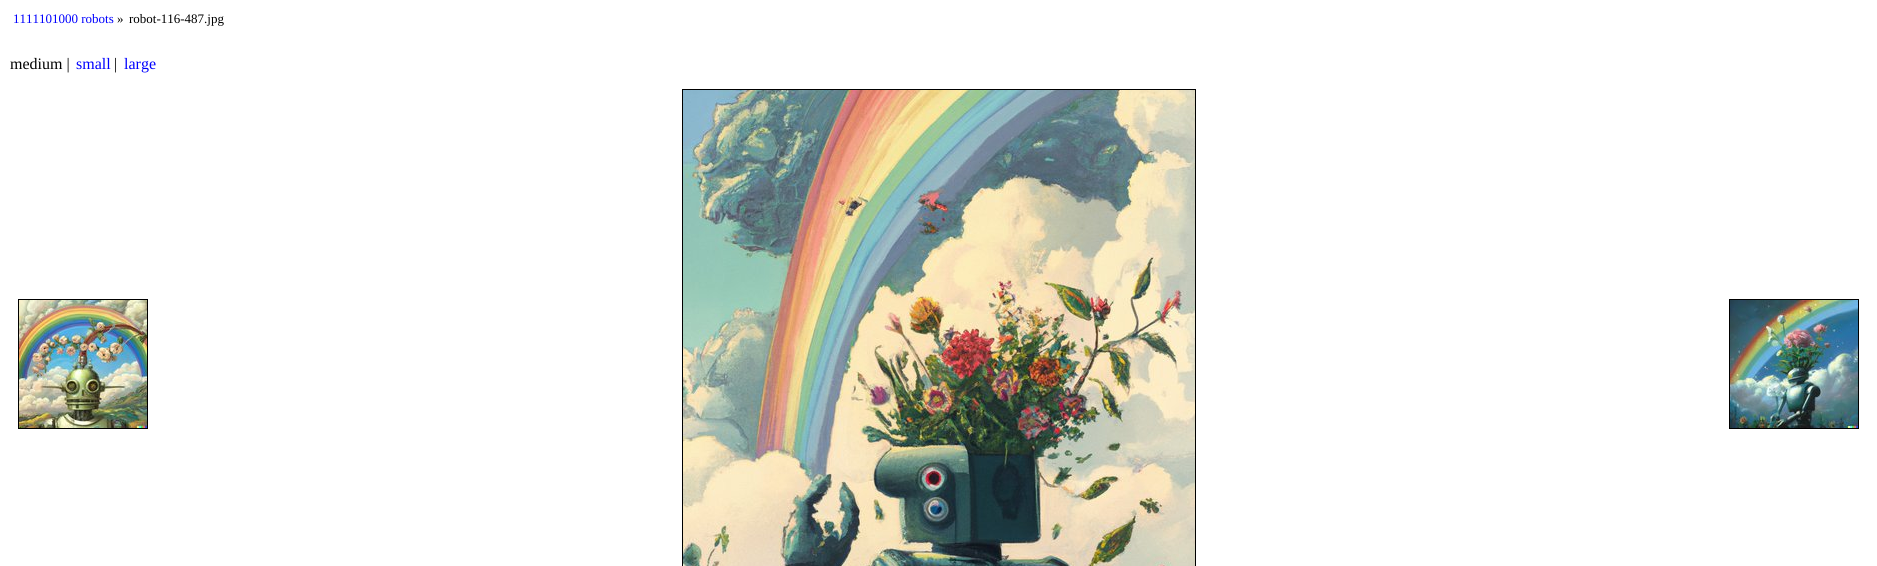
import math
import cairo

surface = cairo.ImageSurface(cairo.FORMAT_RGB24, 1877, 566)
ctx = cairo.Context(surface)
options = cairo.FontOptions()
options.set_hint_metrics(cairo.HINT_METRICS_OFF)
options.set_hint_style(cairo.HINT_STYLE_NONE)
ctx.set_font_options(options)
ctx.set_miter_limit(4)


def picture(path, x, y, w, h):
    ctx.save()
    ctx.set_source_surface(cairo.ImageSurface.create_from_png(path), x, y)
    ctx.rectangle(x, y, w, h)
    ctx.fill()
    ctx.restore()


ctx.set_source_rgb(1, 1, 1)
ctx.paint()
ctx.select_font_face("Liberation Serif")
ctx.set_font_size(13)
ctx.set_source_rgb(0, 0, 1)
ctx.move_to(13, 23)
ctx.show_text("1111101000 robots")
ctx.set_source_rgb(0, 0, 0)
ctx.move_to(117, 23)
ctx.show_text("»")
ctx.move_to(129, 23)
ctx.show_text("robot-116-487.jpg")
ctx.set_font_size(16)
ctx.move_to(10, 69)
ctx.show_text("medium |")
ctx.set_source_rgb(0, 0, 1)
ctx.move_to(76, 69)
ctx.show_text("small")
ctx.set_source_rgb(0, 0, 0)
ctx.move_to(114, 69)
ctx.show_text("|")
ctx.set_source_rgb(0, 0, 1)
ctx.move_to(124, 69)
ctx.show_text("large")
ctx.rectangle(18.5, 299.5, 129, 129)
ctx.set_source_rgb(0, 0, 0)
ctx.set_line_width(1)
ctx.stroke()
picture("img1.png", 19, 300, 128, 128)
ctx.rectangle(682.5, 89.5, 513, 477)
ctx.stroke()
picture("img2.png", 683, 90, 512, 476)
ctx.rectangle(1729.5, 299.5, 129, 129)
ctx.stroke()
picture("img3.png", 1730, 300, 128, 128)
surface.write_to_png("page.png")
